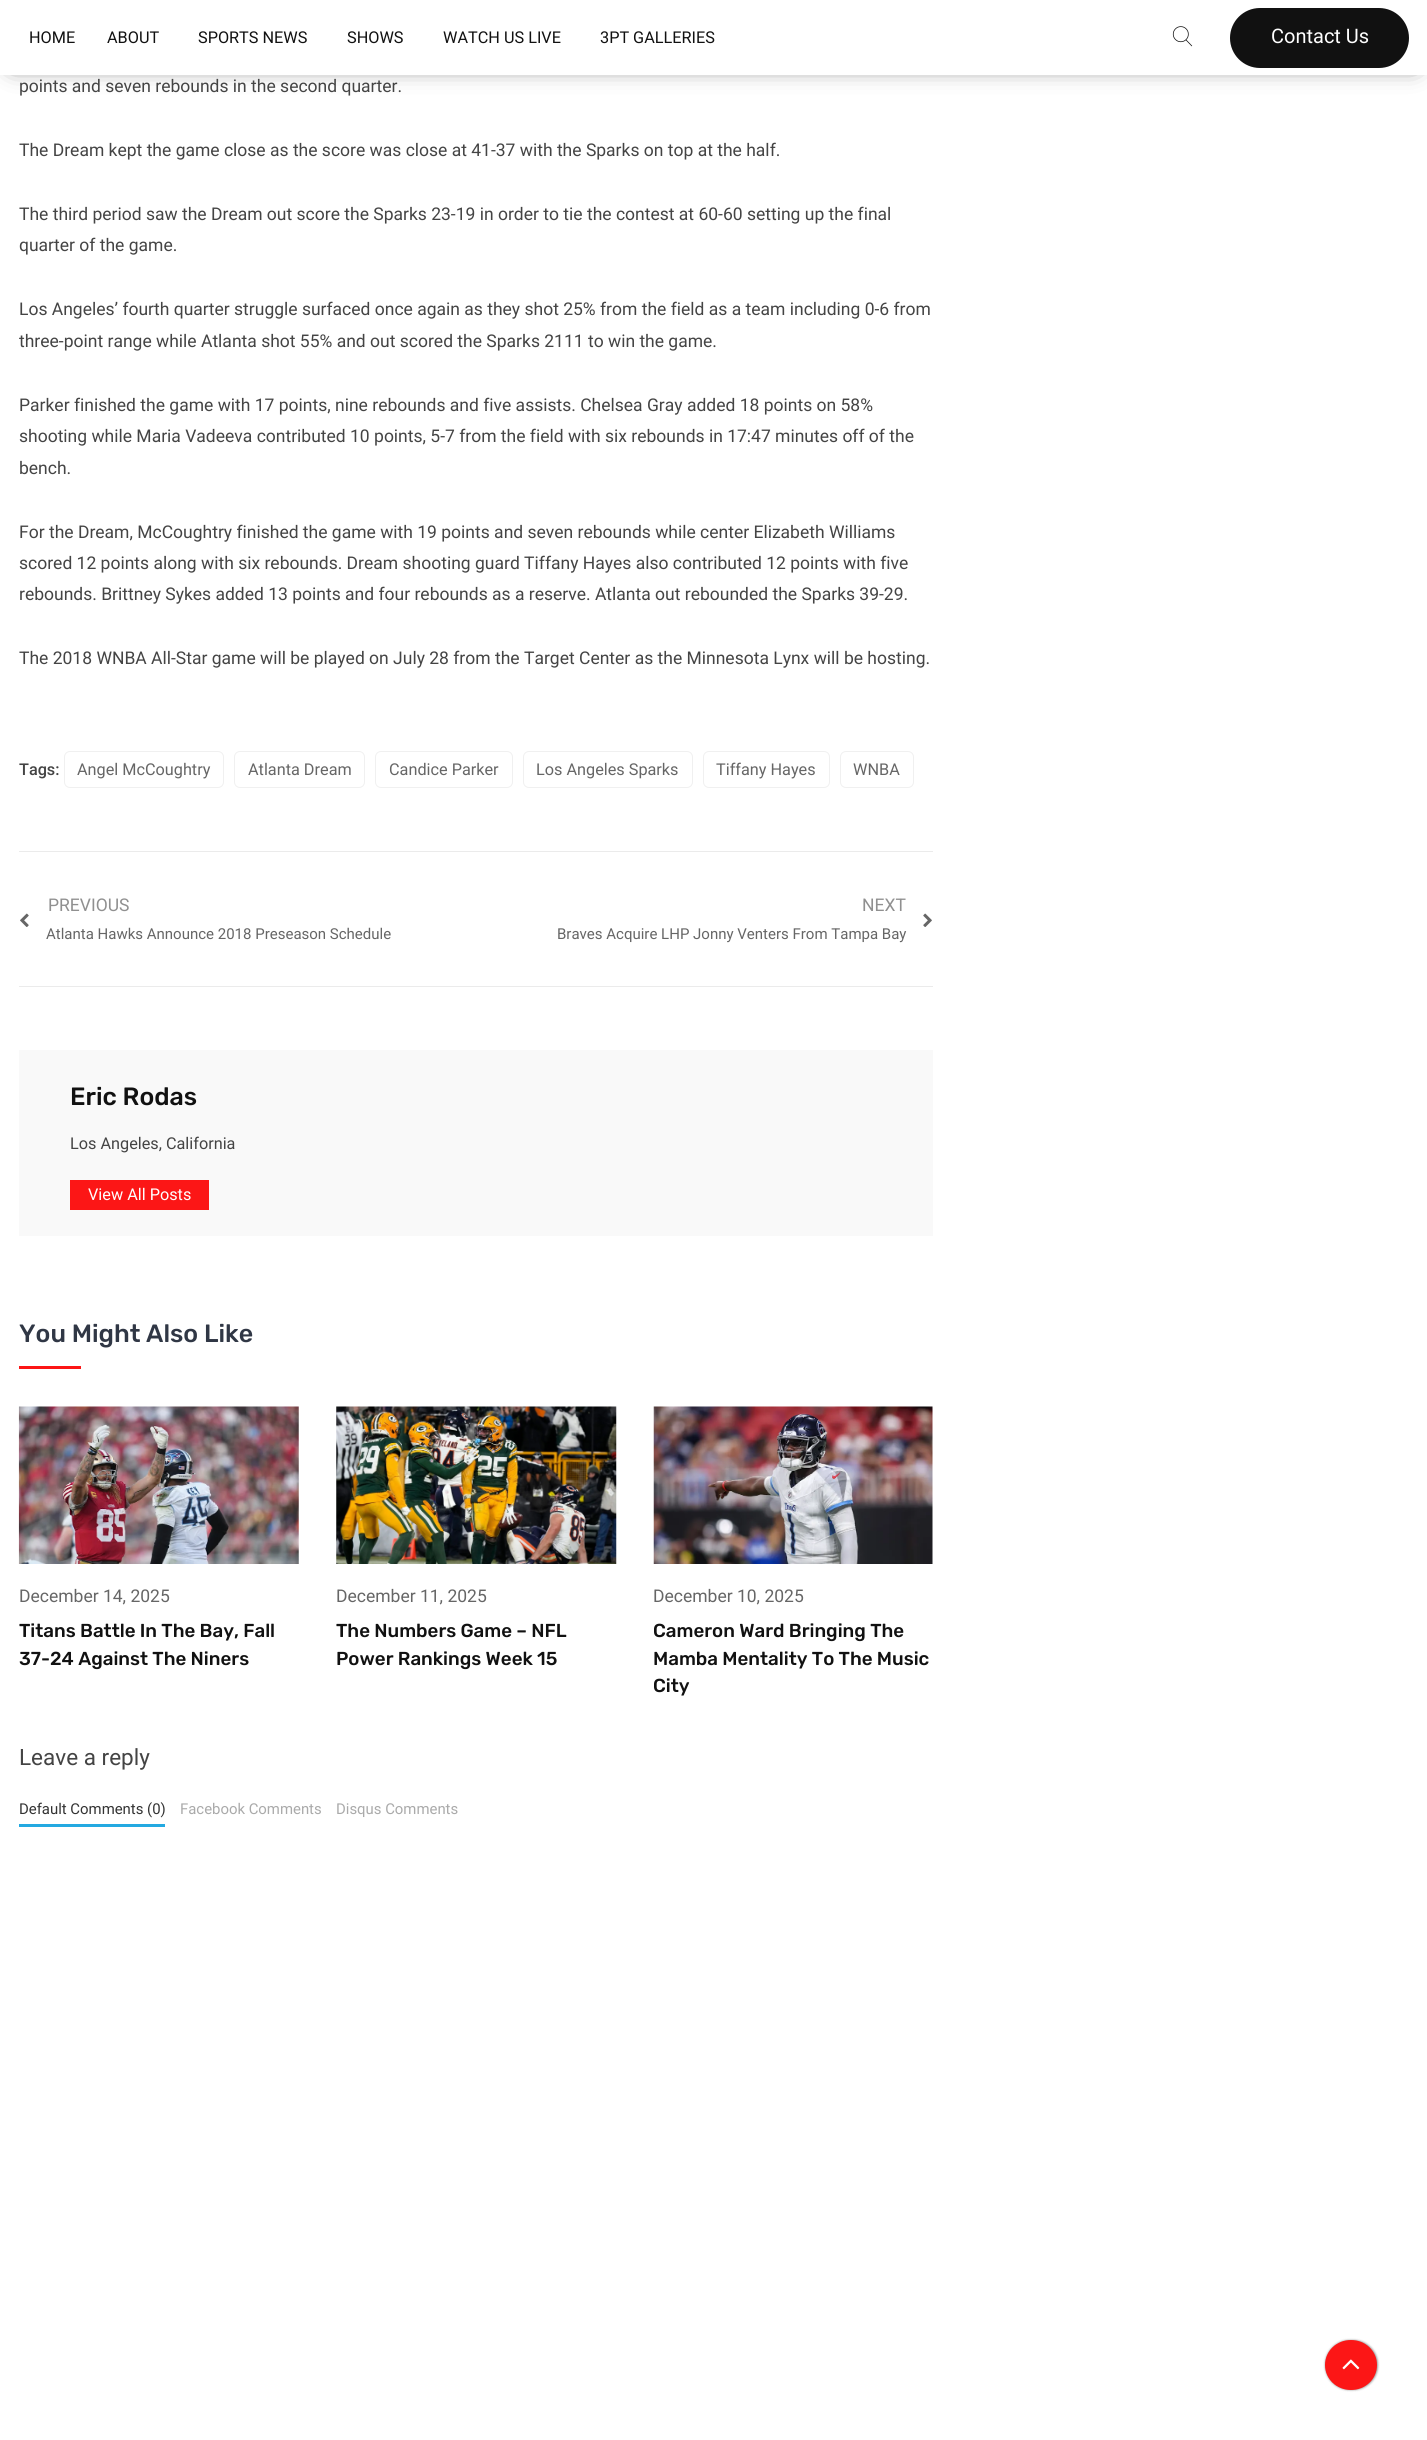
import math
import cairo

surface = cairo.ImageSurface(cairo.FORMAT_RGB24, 1427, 2440)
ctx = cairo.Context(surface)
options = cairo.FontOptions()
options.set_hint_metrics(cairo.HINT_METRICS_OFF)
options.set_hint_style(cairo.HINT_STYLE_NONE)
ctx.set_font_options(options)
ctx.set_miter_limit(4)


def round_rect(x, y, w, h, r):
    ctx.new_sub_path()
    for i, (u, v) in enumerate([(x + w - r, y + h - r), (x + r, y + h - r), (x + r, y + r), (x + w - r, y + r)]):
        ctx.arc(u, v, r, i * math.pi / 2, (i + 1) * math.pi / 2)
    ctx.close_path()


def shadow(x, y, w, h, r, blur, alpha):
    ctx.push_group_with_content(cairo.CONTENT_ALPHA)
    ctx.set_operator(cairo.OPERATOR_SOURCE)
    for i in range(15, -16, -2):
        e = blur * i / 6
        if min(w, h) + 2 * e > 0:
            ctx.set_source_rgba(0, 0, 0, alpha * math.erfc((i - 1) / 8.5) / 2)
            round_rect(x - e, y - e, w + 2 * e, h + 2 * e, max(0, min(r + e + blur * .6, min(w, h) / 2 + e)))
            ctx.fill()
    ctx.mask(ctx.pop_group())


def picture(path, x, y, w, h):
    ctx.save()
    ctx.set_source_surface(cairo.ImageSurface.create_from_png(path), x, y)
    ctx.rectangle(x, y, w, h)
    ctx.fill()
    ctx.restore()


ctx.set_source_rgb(1, 1, 1)
ctx.paint()
ctx.set_source_rgb(0, 0, 0)
shadow(13, 13, 1402, 50, 0, 12.5, 0.8)
ctx.set_source_rgb(1, 1, 1)
ctx.rectangle(0, 0, 1427, 75)
ctx.fill()
ctx.select_font_face("Roboto")
ctx.set_font_size(16.25)
ctx.set_source_rgb(0.067, 0.067, 0.067)
ctx.move_to(29, 43)
ctx.show_text("HOME")
ctx.move_to(107, 43)
ctx.show_text("ABOUT")
ctx.move_to(198, 43)
ctx.show_text("SPORTS NEWS")
ctx.move_to(347, 43)
ctx.show_text("SHOWS")
ctx.move_to(443, 43)
ctx.show_text("WATCH US LIVE")
ctx.move_to(600, 43)
ctx.show_text("3PT GALLERIES")
picture("img1.png", 1172, 26, 21, 21)
round_rect(1231.5, 9.5, 176, 57, 28.5)
ctx.fill_preserve()
ctx.set_line_width(3)
ctx.stroke()
ctx.set_font_size(20)
ctx.set_source_rgb(1, 1, 1)
ctx.move_to(1271, 43)
ctx.show_text("Contact Us")
ctx.set_font_size(17.5)
ctx.set_source_rgb(0.267, 0.267, 0.267)
ctx.move_to(19, 92)
ctx.show_text("points and seven rebounds in the second quarter.")
ctx.move_to(19, 156)
ctx.show_text("The Dream kept the game close as the score was close at 41-37 with the Sparks on top at the half.")
ctx.move_to(19, 220)
ctx.show_text("The third period saw the Dream out score the Sparks 23-19 in order to tie the contest at 60-60 setting up the final")
ctx.move_to(19, 251)
ctx.show_text("quarter of the game.")
ctx.move_to(19, 315)
ctx.show_text("Los Angeles’ fourth quarter struggle surfaced once again as they shot 25% from the field as a team including 0-6 from")
ctx.move_to(19, 347)
ctx.show_text("three-point range while Atlanta shot 55% and out scored the Sparks 2111 to win the game.")
ctx.move_to(19, 411)
ctx.show_text("Parker finished the game with 17 points, nine rebounds and five assists. Chelsea Gray added 18 points on 58%")
ctx.move_to(19, 442)
ctx.show_text("shooting while Maria Vadeeva contributed 10 points, 5-7 from the field with six rebounds in 17:47 minutes off of the")
ctx.move_to(19, 474)
ctx.show_text("bench.")
ctx.move_to(19, 538)
ctx.show_text("For the Dream, McCoughtry finished the game with 19 points and seven rebounds while center Elizabeth Williams")
ctx.move_to(19, 569)
ctx.show_text("scored 12 points along with six rebounds. Dream shooting guard Tiffany Hayes also contributed 12 points with five")
ctx.move_to(19, 600)
ctx.show_text("rebounds. Brittney Sykes added 13 points and four rebounds as a reserve. Atlanta out rebounded the Sparks 39-29.")
ctx.move_to(19, 664)
ctx.show_text("The 2018 WNBA All-Star game will be played on July 28 from the Target Center as the Minnesota Lynx will be hosting.")
ctx.select_font_face("Roboto Medium")
ctx.set_font_size(16.25)
ctx.move_to(19, 775)
ctx.show_text("Tags:")
round_rect(64.5, 751.5, 159, 36, 5.5)
ctx.set_source_rgb(0.941, 0.941, 0.941)
ctx.set_line_width(1)
ctx.stroke()
ctx.select_font_face("Roboto")
ctx.set_source_rgb(0.4, 0.4, 0.4)
ctx.move_to(77, 775)
ctx.show_text("Angel McCoughtry")
round_rect(234.5, 751.5, 130, 36, 5.5)
ctx.set_source_rgb(0.941, 0.941, 0.941)
ctx.stroke()
ctx.set_source_rgb(0.4, 0.4, 0.4)
ctx.move_to(248, 775)
ctx.show_text("Atlanta Dream")
round_rect(375.5, 751.5, 137, 36, 5.5)
ctx.set_source_rgb(0.941, 0.941, 0.941)
ctx.stroke()
ctx.set_source_rgb(0.4, 0.4, 0.4)
ctx.move_to(389, 775)
ctx.show_text("Candice Parker")
round_rect(523.5, 751.5, 169, 36, 5.5)
ctx.set_source_rgb(0.941, 0.941, 0.941)
ctx.stroke()
ctx.set_source_rgb(0.4, 0.4, 0.4)
ctx.move_to(536, 775)
ctx.show_text("Los Angeles Sparks")
round_rect(703.5, 751.5, 126, 36, 5.5)
ctx.set_source_rgb(0.941, 0.941, 0.941)
ctx.stroke()
ctx.set_source_rgb(0.4, 0.4, 0.4)
ctx.move_to(716, 775)
ctx.show_text("Tiffany Hayes")
round_rect(840.5, 751.5, 73, 36, 5.5)
ctx.set_source_rgb(0.941, 0.941, 0.941)
ctx.stroke()
ctx.set_source_rgb(0.4, 0.4, 0.4)
ctx.move_to(853, 775)
ctx.show_text("WNBA")
ctx.set_source_rgb(0.918, 0.918, 0.918)
ctx.rectangle(19, 851, 914, 1)
ctx.fill()
ctx.rectangle(19, 986, 914, 1)
ctx.fill()
ctx.set_font_size(17.5)
ctx.set_source_rgb(0.565, 0.565, 0.565)
ctx.move_to(48, 911)
ctx.show_text("PREVIOUS")
picture("img2.png", 20, 913, 9, 14)
ctx.set_font_size(15)
ctx.set_source_rgb(0.4, 0.4, 0.4)
ctx.move_to(46, 939)
ctx.show_text("Atlanta Hawks Announce 2018 Preseason Schedule")
ctx.set_font_size(17.5)
ctx.set_source_rgb(0.565, 0.565, 0.565)
ctx.move_to(862, 911)
ctx.show_text("NEXT")
picture("img3.png", 923, 913, 9, 14)
ctx.set_font_size(15)
ctx.set_source_rgb(0.4, 0.4, 0.4)
ctx.move_to(557, 939)
ctx.show_text("Braves Acquire LHP Jonny Venters From Tampa Bay")
ctx.set_source_rgb(0.976, 0.976, 0.976)
ctx.rectangle(19, 1050, 914, 186)
ctx.fill()
ctx.select_font_face("Rubik Medium")
ctx.set_font_size(25)
ctx.set_source_rgb(0.067, 0.067, 0.067)
ctx.move_to(70, 1105)
ctx.show_text("Eric Rodas")
ctx.select_font_face("Roboto")
ctx.set_font_size(16.25)
ctx.set_source_rgb(0.267, 0.267, 0.267)
ctx.move_to(70, 1149)
ctx.show_text("Los Angeles, California")
ctx.set_source_rgb(0.988, 0.086, 0.086)
ctx.rectangle(70, 1180, 139, 30)
ctx.fill()
ctx.set_source_rgb(1, 1, 1)
ctx.move_to(88, 1200)
ctx.show_text("View All Posts")
ctx.select_font_face("Rubik Medium")
ctx.set_font_size(25)
ctx.set_source_rgb(0.188, 0.216, 0.271)
ctx.move_to(19, 1342)
ctx.show_text("You Might Also Like")
ctx.set_source_rgb(0.988, 0.086, 0.086)
ctx.rectangle(19, 1366, 62, 3)
ctx.fill()
picture("img4.png", 18, 1406, 281, 158)
ctx.select_font_face("Roboto")
ctx.set_font_size(17.5)
ctx.set_source_rgb(0.4, 0.4, 0.4)
ctx.move_to(19, 1602)
ctx.show_text("December 14, 2025")
ctx.select_font_face("Rubik Medium")
ctx.set_font_size(18.75)
ctx.set_source_rgb(0.067, 0.067, 0.067)
ctx.move_to(19, 1637)
ctx.show_text("Titans Battle In The Bay, Fall")
ctx.move_to(19, 1665)
ctx.show_text("37-24 Against The Niners")
picture("img5.png", 336, 1406, 281, 158)
ctx.select_font_face("Roboto")
ctx.set_font_size(17.5)
ctx.set_source_rgb(0.4, 0.4, 0.4)
ctx.move_to(336, 1602)
ctx.show_text("December 11, 2025")
ctx.select_font_face("Rubik Medium")
ctx.set_font_size(18.75)
ctx.set_source_rgb(0.067, 0.067, 0.067)
ctx.move_to(336, 1637)
ctx.show_text("The Numbers Game – NFL")
ctx.move_to(336, 1665)
ctx.show_text("Power Rankings Week 15")
picture("img6.png", 653, 1406, 280, 158)
ctx.select_font_face("Roboto")
ctx.set_font_size(17.5)
ctx.set_source_rgb(0.4, 0.4, 0.4)
ctx.move_to(653, 1602)
ctx.show_text("December 10, 2025")
ctx.select_font_face("Rubik Medium")
ctx.set_font_size(18.75)
ctx.set_source_rgb(0.067, 0.067, 0.067)
ctx.move_to(653, 1637)
ctx.show_text("Cameron Ward Bringing The")
ctx.move_to(653, 1665)
ctx.show_text("Mamba Mentality To The Music")
ctx.move_to(653, 1692)
ctx.show_text("City")
ctx.select_font_face("Roboto")
ctx.set_font_size(22.5)
ctx.set_source_rgb(0.267, 0.267, 0.267)
ctx.move_to(19, 1765)
ctx.show_text("Leave a reply")
ctx.set_source_rgb(0.137, 0.663, 0.882)
ctx.rectangle(19, 1824, 146, 3)
ctx.fill()
ctx.set_font_size(14.9)
ctx.set_source_rgb(0.2, 0.2, 0.2)
ctx.move_to(19, 1814)
ctx.show_text("Default Comments (0)")
ctx.set_source_rgb(0.667, 0.667, 0.667)
ctx.move_to(180, 1814)
ctx.show_text("Facebook Comments")
ctx.move_to(336, 1814)
ctx.show_text("Disqus Comments")
ctx.set_source_rgb(0, 0, 0)
shadow(1325, 2340, 53, 50, 25, 1, 0.4)
ctx.set_source_rgb(0.988, 0.086, 0.086)
ctx.new_path()
ctx.move_to(1351, 2340)
ctx.curve_to(1365.5, 2340, 1377, 2351, 1377, 2365)
ctx.curve_to(1377, 2379, 1365.5, 2390, 1351, 2390)
ctx.curve_to(1336.5, 2390, 1325, 2379, 1325, 2365)
ctx.curve_to(1325, 2351, 1336.5, 2340, 1351, 2340)
ctx.close_path()
ctx.fill()
picture("img7.png", 1342, 2359, 18, 11)
surface.write_to_png("page.png")
